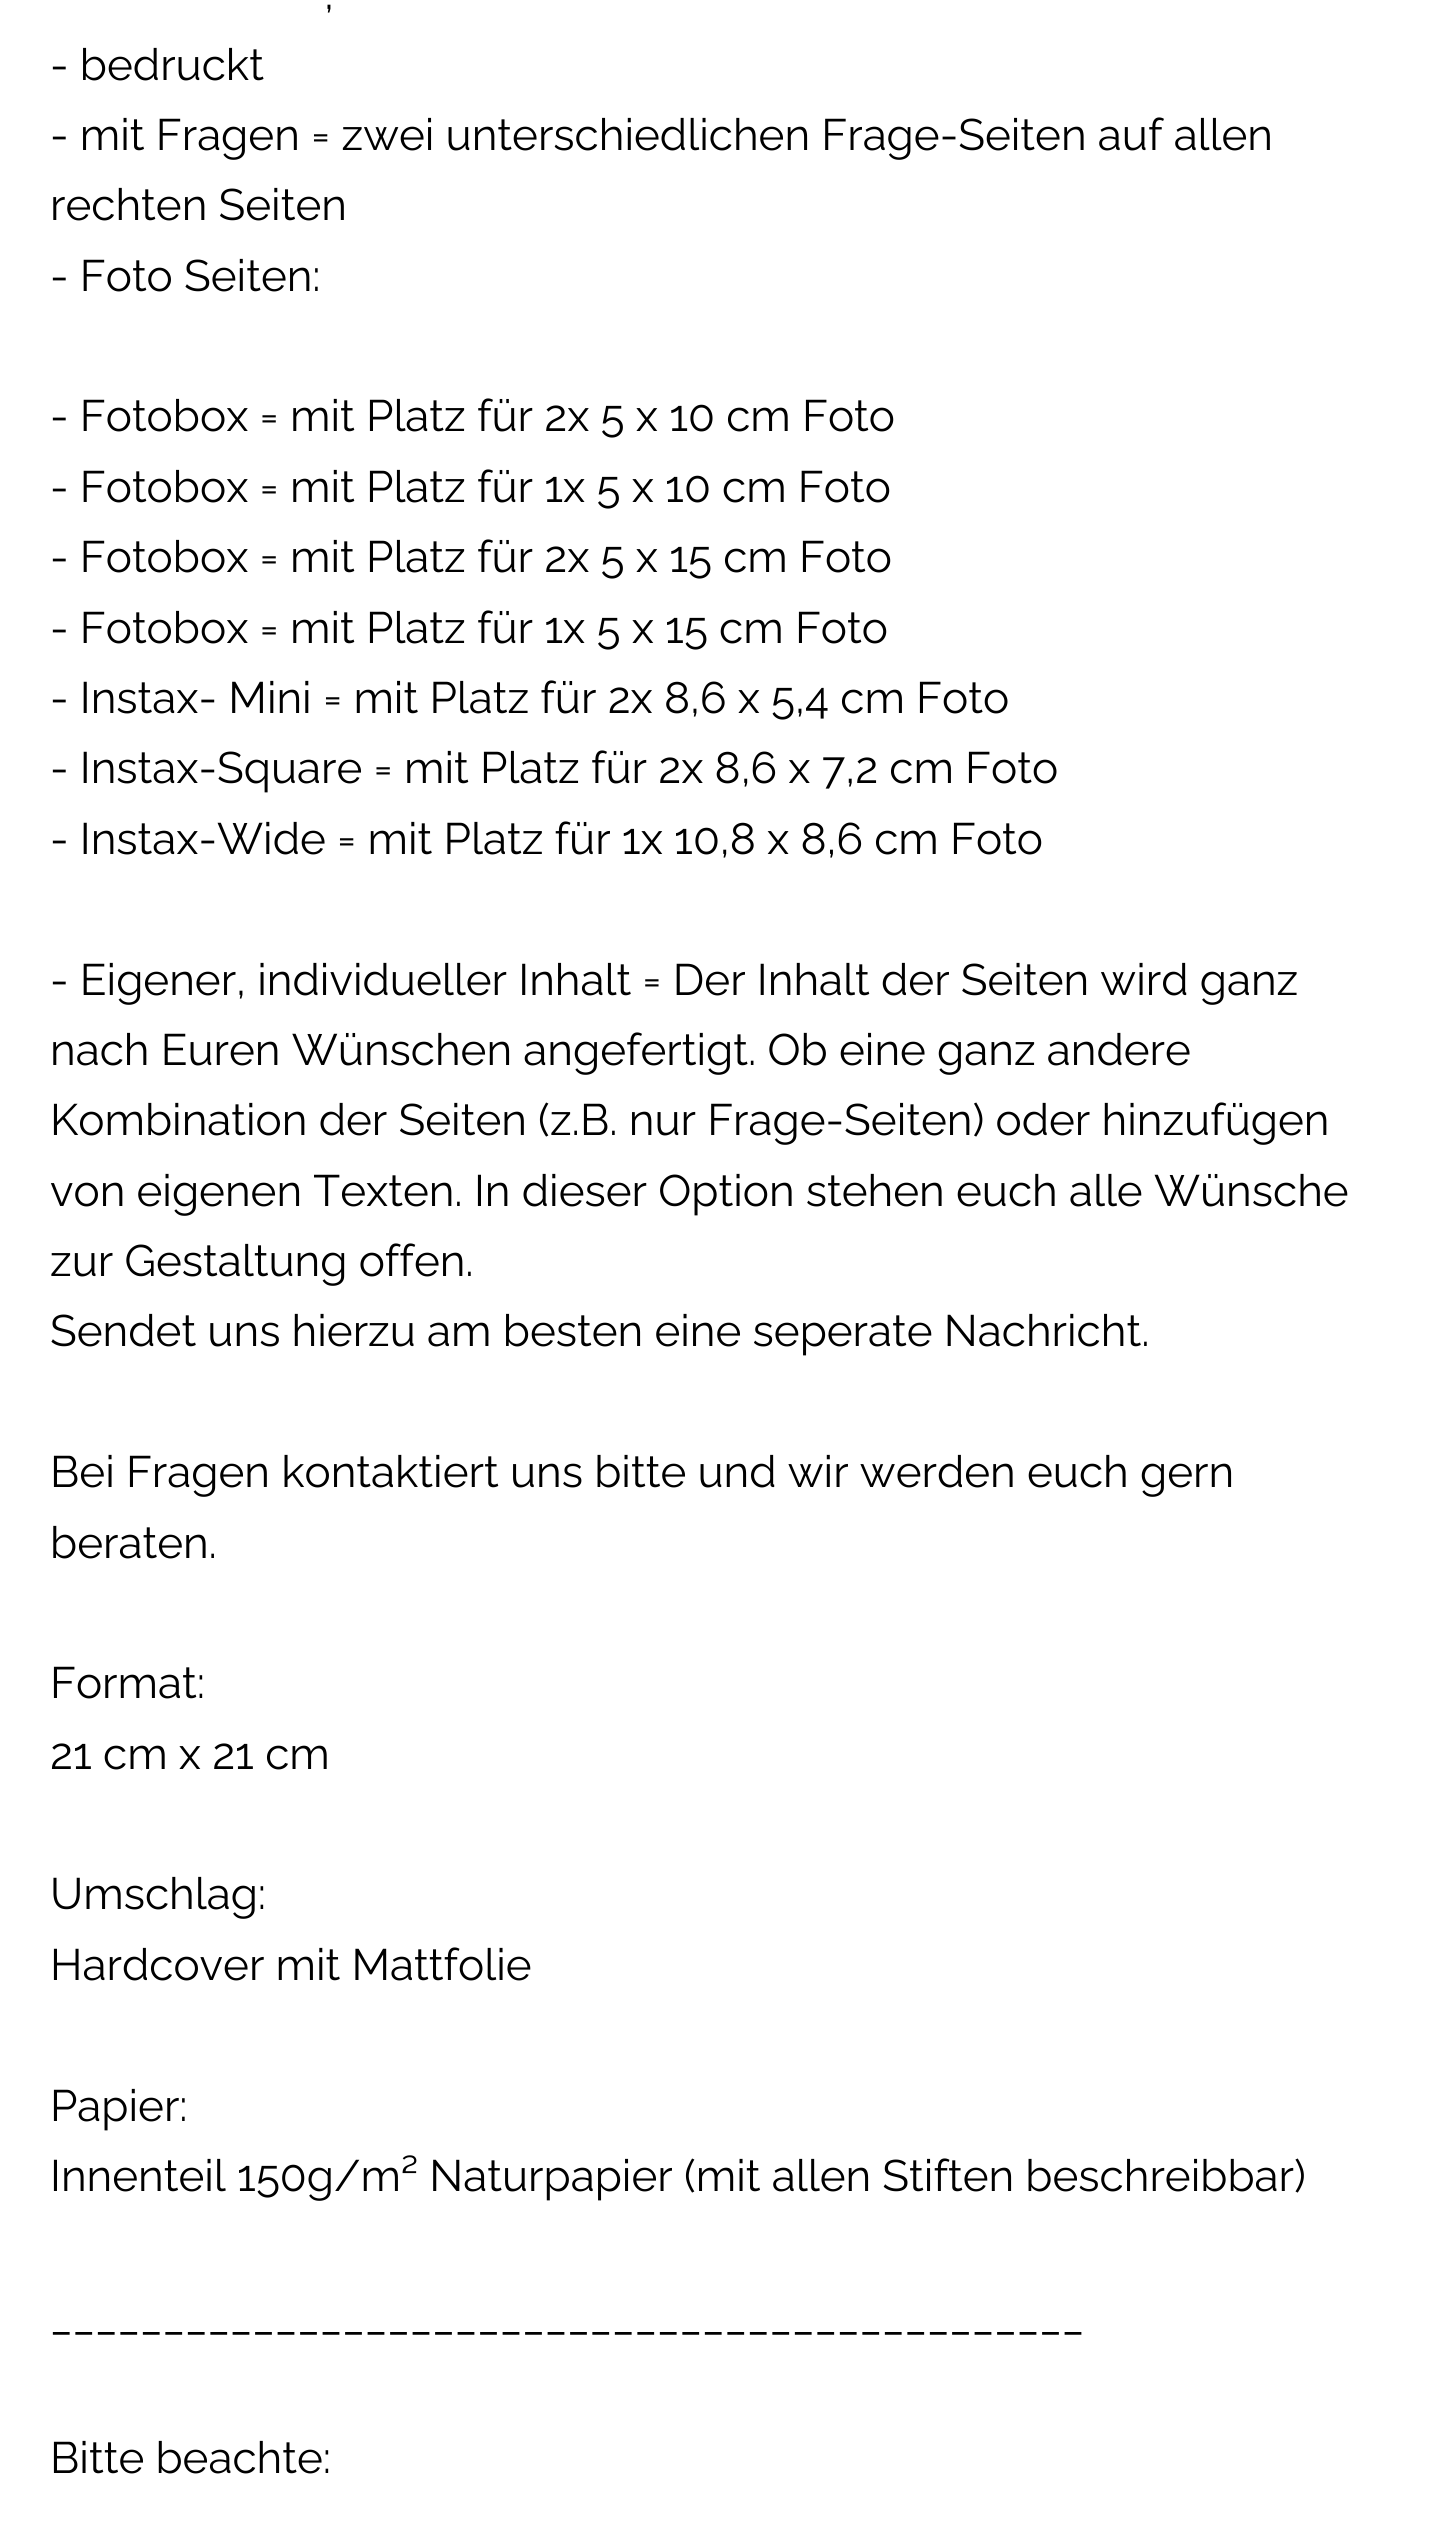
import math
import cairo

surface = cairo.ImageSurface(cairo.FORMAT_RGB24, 1430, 2523)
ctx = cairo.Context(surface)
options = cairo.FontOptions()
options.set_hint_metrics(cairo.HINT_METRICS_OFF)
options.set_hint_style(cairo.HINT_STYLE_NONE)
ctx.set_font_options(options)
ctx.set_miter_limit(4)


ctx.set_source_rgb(1, 1, 1)
ctx.paint()
ctx.select_font_face("Raleway")
ctx.set_font_size(44)
ctx.set_source_rgb(0, 0, 0)
ctx.move_to(324, 9)
ctx.show_text(",")
ctx.move_to(50, 80)
ctx.show_text("- bedruckt")
ctx.move_to(50, 150)
ctx.show_text("- mit Fragen = zwei unterschiedlichen Frage-Seiten auf allen")
ctx.move_to(50, 220)
ctx.show_text("rechten Seiten")
ctx.move_to(50, 291)
ctx.show_text("- Foto Seiten:")
ctx.move_to(50, 431)
ctx.show_text("- Fotobox = mit Platz für 2x 5 x 10 cm Foto")
ctx.move_to(50, 502)
ctx.show_text("- Fotobox = mit Platz für 1x 5 x 10 cm Foto")
ctx.move_to(50, 572)
ctx.show_text("- Fotobox = mit Platz für 2x 5 x 15 cm Foto")
ctx.move_to(50, 643)
ctx.show_text("- Fotobox = mit Platz für 1x 5 x 15 cm Foto")
ctx.move_to(50, 713)
ctx.show_text("- Instax- Mini = mit Platz für 2x 8,6 x 5,4 cm Foto")
ctx.move_to(50, 783)
ctx.show_text("- Instax-Square = mit Platz für 2x 8,6 x 7,2 cm Foto")
ctx.move_to(50, 854)
ctx.show_text("- Instax-Wide = mit Platz für 1x 10,8 x 8,6 cm Foto")
ctx.move_to(50, 995)
ctx.show_text("- Eigener, individueller Inhalt = Der Inhalt der Seiten wird ganz")
ctx.move_to(50, 1065)
ctx.show_text("nach Euren Wünschen angefertigt. Ob eine ganz andere")
ctx.move_to(50, 1135)
ctx.show_text("Kombination der Seiten (z.B. nur Frage-Seiten) oder hinzufügen")
ctx.move_to(50, 1206)
ctx.show_text("von eigenen Texten. In dieser Option stehen euch alle Wünsche")
ctx.move_to(50, 1276)
ctx.show_text("zur Gestaltung offen.")
ctx.move_to(50, 1346)
ctx.show_text("Sendet uns hierzu am besten eine seperate Nachricht.")
ctx.move_to(50, 1487)
ctx.show_text("Bei Fragen kontaktiert uns bitte und wir werden euch gern")
ctx.move_to(50, 1558)
ctx.show_text("beraten.")
ctx.move_to(50, 1698)
ctx.show_text("Format:")
ctx.move_to(50, 1769)
ctx.show_text("21 cm x 21 cm")
ctx.move_to(50, 1909)
ctx.show_text("Umschlag:")
ctx.move_to(50, 1980)
ctx.show_text("Hardcover mit Mattfolie")
ctx.move_to(50, 2121)
ctx.show_text("Papier:")
ctx.move_to(50, 2191)
ctx.show_text("Innenteil 150g/m² Naturpapier (mit allen Stiften beschreibbar)")
ctx.move_to(50, 2332)
ctx.show_text("______________________________________________")
ctx.move_to(50, 2473)
ctx.show_text("Bitte beachte:")
surface.write_to_png("page.png")
